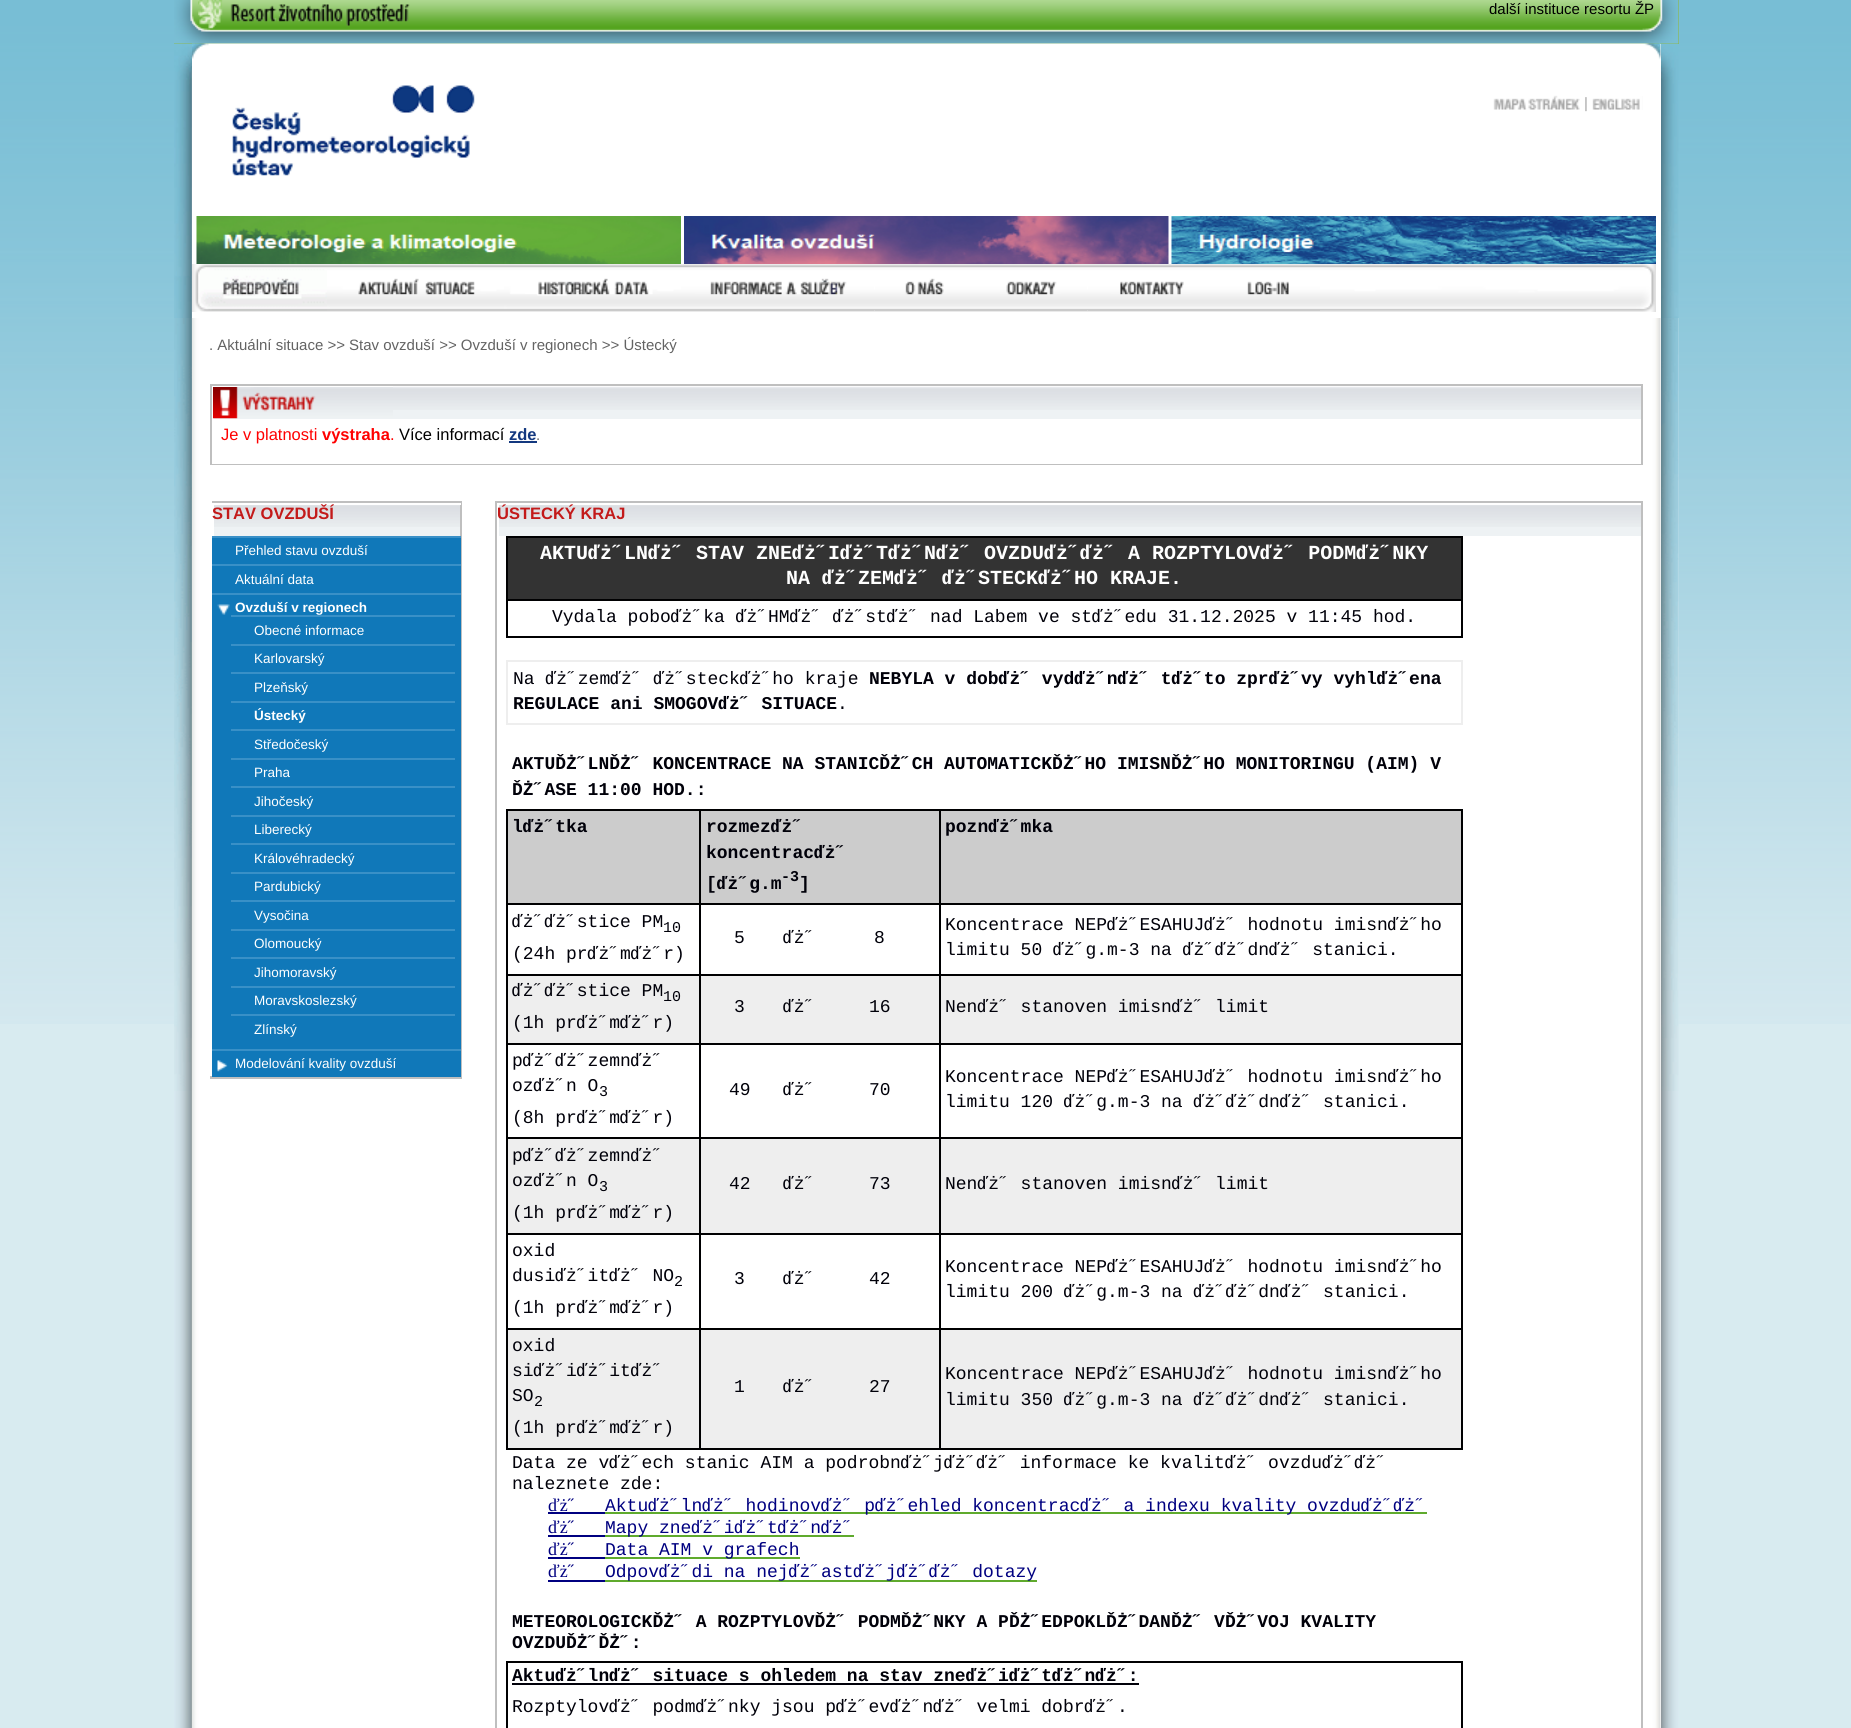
import math
import cairo

surface = cairo.ImageSurface(cairo.FORMAT_RGB24, 1851, 1728)
ctx = cairo.Context(surface)
options = cairo.FontOptions()
options.set_hint_metrics(cairo.HINT_METRICS_OFF)
options.set_hint_style(cairo.HINT_STYLE_NONE)
ctx.set_font_options(options)
ctx.set_miter_limit(4)


def picture(path, x, y, w, h):
    ctx.save()
    ctx.set_source_surface(cairo.ImageSurface.create_from_png(path), x, y)
    ctx.rectangle(x, y, w, h)
    ctx.fill()
    ctx.restore()


ctx.set_source_rgb(0.847, 0.918, 0.941)
ctx.paint()
picture("img1.png", 0, 0, 1851, 1024)
ctx.set_source_rgb(0.576, 0.714, 0.196)
ctx.rectangle(174, 0, 1505, 44)
ctx.fill()
picture("img2.png", 174, 0, 1505, 44)
picture("img3.png", 198, 0, 212, 29)
ctx.select_font_face("Liberation Sans")
ctx.set_font_size(15)
ctx.set_source_rgb(0, 0, 0)
ctx.move_to(1489, 14)
ctx.show_text("další instituce resortu ŽP")
picture("img4.png", 174, 43, 1505, 275)
ctx.set_source_rgb(1, 1, 1)
ctx.rectangle(192, 44, 1469, 274)
ctx.fill()
picture("img5.png", 192, 43, 1469, 17)
picture("img7.png", 235, 85, 240, 1)
picture("img6.png", 232, 85, 374, 91)
picture("img8.png", 1490, 95, 94, 15)
ctx.set_source_rgb(0.647, 0.647, 0.647)
ctx.move_to(1584, 108)
ctx.show_text("|")
picture("img9.png", 1591, 96, 52, 14)
picture("img10.png", 196, 216, 485, 48)
picture("img11.png", 684, 216, 485, 48)
picture("img12.png", 1171, 216, 485, 48)
picture("img13.png", 192, 264, 1464, 48)
picture("img14.png", 200, 269, 127, 42)
picture("img15.png", 210, 279, 97, 15)
picture("img16.png", 327, 278, 177, 33)
picture("img17.png", 343, 280, 143, 14)
picture("img18.png", 504, 278, 177, 33)
picture("img19.png", 525, 280, 135, 14)
picture("img20.png", 681, 278, 193, 33)
picture("img21.png", 695, 279, 165, 15)
picture("img22.png", 875, 278, 100, 33)
picture("img23.png", 901, 280, 46, 14)
picture("img24.png", 975, 281, 112, 30)
picture("img25.png", 1000, 282, 61, 12)
picture("img26.png", 1088, 281, 127, 30)
picture("img27.png", 1111, 282, 80, 12)
picture("img28.png", 1215, 281, 105, 30)
picture("img29.png", 1244, 282, 45, 12)
picture("img30.png", 174, 318, 1505, 1410)
picture("img31.png", 174, 318, 1505, 773)
ctx.set_source_rgb(1, 1, 1)
ctx.rectangle(1660, 318, 1, 1410)
ctx.fill()
picture("img32.png", 192, 318, 1469, 1410)
ctx.set_source_rgb(0.388, 0.388, 0.388)
ctx.move_to(209, 350)
ctx.show_text(". Aktuální situace >> Stav ovzduší >> Ovzduší v regionech >> Ústecký")
ctx.set_source_rgb(0.933, 0.949, 0.957)
ctx.rectangle(214, 410, 1427, 9)
ctx.fill()
picture("img33.png", 393, 386, 1248, 24)
ctx.rectangle(211, 385, 1431, 79)
ctx.set_source_rgb(0.749, 0.749, 0.749)
ctx.stroke()
picture("img34.png", 213, 387, 180, 32)
ctx.set_source_rgb(1, 1, 1)
ctx.rectangle(212, 463, 1429, 1)
ctx.fill()
ctx.set_font_size(16.5)
ctx.set_source_rgb(1, 0, 0)
ctx.move_to(221, 440)
ctx.show_text("Je v platnosti")
ctx.select_font_face("Liberation Sans", cairo.FONT_SLANT_NORMAL, cairo.FONT_WEIGHT_BOLD)
ctx.move_to(322, 440)
ctx.show_text("výstraha")
ctx.select_font_face("Liberation Sans")
ctx.move_to(390, 440)
ctx.show_text(".")
ctx.set_source_rgb(0, 0, 0)
ctx.move_to(399, 440)
ctx.show_text("Více informací")
ctx.select_font_face("Liberation Sans", cairo.FONT_SLANT_NORMAL, cairo.FONT_WEIGHT_BOLD)
ctx.set_source_rgb(0.078, 0.22, 0.498)
ctx.move_to(509, 440)
ctx.show_text("zde")
ctx.rectangle(509, 441, 28, 2)
ctx.fill()
ctx.select_font_face("Liberation Sans")
ctx.set_font_size(15)
ctx.set_source_rgb(0.388, 0.388, 0.388)
ctx.move_to(536, 440)
ctx.show_text(".")
ctx.set_source_rgb(0.933, 0.949, 0.957)
ctx.rectangle(214, 527, 246, 9)
ctx.fill()
picture("img35.png", 214, 505, 246, 22)
ctx.rectangle(211, 502, 250, 576)
ctx.set_source_rgb(0.749, 0.749, 0.749)
ctx.stroke()
ctx.set_source_rgb(1, 1, 1)
ctx.rectangle(460, 503, 1, 2)
ctx.fill()
ctx.select_font_face("Liberation Sans", cairo.FONT_SLANT_NORMAL, cairo.FONT_WEIGHT_BOLD)
ctx.set_font_size(16.5)
ctx.set_source_rgb(0.765, 0.102, 0.102)
ctx.move_to(212, 519)
ctx.show_text("STAV OVZDUŠÍ")
ctx.set_source_rgb(0.063, 0.471, 0.725)
ctx.rectangle(212, 538, 249, 26)
ctx.fill()
ctx.set_source_rgb(0.224, 0.565, 0.78)
ctx.rectangle(212, 536, 249, 2)
ctx.fill()
ctx.select_font_face("Liberation Sans")
ctx.set_font_size(13.5)
ctx.set_source_rgb(1, 1, 1)
ctx.move_to(235, 555)
ctx.show_text("Přehled stavu ovzduší")
ctx.set_source_rgb(0.063, 0.471, 0.725)
ctx.rectangle(212, 566, 249, 27)
ctx.fill()
ctx.set_source_rgb(0.224, 0.565, 0.78)
ctx.rectangle(212, 564, 249, 2)
ctx.fill()
ctx.set_source_rgb(1, 1, 1)
ctx.move_to(235, 584)
ctx.show_text("Aktuální data")
ctx.set_source_rgb(0.063, 0.471, 0.725)
ctx.rectangle(212, 595, 249, 454)
ctx.fill()
picture("img36.png", 217, 604, 13, 11)
ctx.set_source_rgb(0.224, 0.565, 0.78)
ctx.rectangle(212, 593, 249, 2)
ctx.fill()
ctx.select_font_face("Liberation Sans", cairo.FONT_SLANT_NORMAL, cairo.FONT_WEIGHT_BOLD)
ctx.set_source_rgb(1, 1, 1)
ctx.move_to(235, 612)
ctx.show_text("Ovzduší v regionech")
ctx.rectangle(210, 501, 2, 575)
ctx.fill()
ctx.set_source_rgb(0.224, 0.565, 0.78)
ctx.rectangle(231, 615, 224, 2)
ctx.fill()
ctx.select_font_face("Liberation Sans")
ctx.set_source_rgb(1, 1, 1)
ctx.move_to(254, 635)
ctx.show_text("Obecné informace")
ctx.set_source_rgb(0.224, 0.565, 0.78)
ctx.rectangle(231, 644, 224, 2)
ctx.fill()
ctx.set_source_rgb(1, 1, 1)
ctx.move_to(254, 663)
ctx.show_text("Karlovarský")
ctx.set_source_rgb(0.224, 0.565, 0.78)
ctx.rectangle(231, 672, 224, 2)
ctx.fill()
ctx.set_source_rgb(1, 1, 1)
ctx.move_to(254, 692)
ctx.show_text("Plzeňský")
ctx.set_source_rgb(0.224, 0.565, 0.78)
ctx.rectangle(231, 701, 224, 2)
ctx.fill()
ctx.select_font_face("Liberation Sans", cairo.FONT_SLANT_NORMAL, cairo.FONT_WEIGHT_BOLD)
ctx.set_source_rgb(1, 1, 1)
ctx.move_to(254, 720)
ctx.show_text("Ústecký")
ctx.set_source_rgb(0.224, 0.565, 0.78)
ctx.rectangle(231, 729, 224, 2)
ctx.fill()
ctx.select_font_face("Liberation Sans")
ctx.set_source_rgb(1, 1, 1)
ctx.move_to(254, 749)
ctx.show_text("Středočeský")
ctx.set_source_rgb(0.224, 0.565, 0.78)
ctx.rectangle(231, 758, 224, 2)
ctx.fill()
ctx.set_source_rgb(1, 1, 1)
ctx.move_to(254, 777)
ctx.show_text("Praha")
ctx.set_source_rgb(0.224, 0.565, 0.78)
ctx.rectangle(231, 786, 224, 2)
ctx.fill()
ctx.set_source_rgb(1, 1, 1)
ctx.move_to(254, 806)
ctx.show_text("Jihočeský")
ctx.set_source_rgb(0.224, 0.565, 0.78)
ctx.rectangle(231, 815, 224, 2)
ctx.fill()
ctx.set_source_rgb(1, 1, 1)
ctx.move_to(254, 834)
ctx.show_text("Liberecký")
ctx.set_source_rgb(0.224, 0.565, 0.78)
ctx.rectangle(231, 843, 224, 2)
ctx.fill()
ctx.set_source_rgb(1, 1, 1)
ctx.move_to(254, 863)
ctx.show_text("Královéhradecký")
ctx.set_source_rgb(0.224, 0.565, 0.78)
ctx.rectangle(231, 872, 224, 2)
ctx.fill()
ctx.set_source_rgb(1, 1, 1)
ctx.move_to(254, 891)
ctx.show_text("Pardubický")
ctx.set_source_rgb(0.224, 0.565, 0.78)
ctx.rectangle(231, 900, 224, 2)
ctx.fill()
ctx.set_source_rgb(1, 1, 1)
ctx.move_to(254, 920)
ctx.show_text("Vysočina")
ctx.set_source_rgb(0.224, 0.565, 0.78)
ctx.rectangle(231, 929, 224, 2)
ctx.fill()
ctx.set_source_rgb(1, 1, 1)
ctx.move_to(254, 948)
ctx.show_text("Olomoucký")
ctx.set_source_rgb(0.224, 0.565, 0.78)
ctx.rectangle(231, 957, 224, 2)
ctx.fill()
ctx.set_source_rgb(1, 1, 1)
ctx.move_to(254, 977)
ctx.show_text("Jihomoravský")
ctx.set_source_rgb(0.224, 0.565, 0.78)
ctx.rectangle(231, 986, 224, 2)
ctx.fill()
ctx.set_source_rgb(1, 1, 1)
ctx.move_to(254, 1005)
ctx.show_text("Moravskoslezský")
ctx.set_source_rgb(0.224, 0.565, 0.78)
ctx.rectangle(231, 1014, 224, 2)
ctx.fill()
ctx.set_source_rgb(1, 1, 1)
ctx.move_to(254, 1034)
ctx.show_text("Zlínský")
ctx.set_source_rgb(0.063, 0.471, 0.725)
ctx.rectangle(212, 1051, 249, 26)
ctx.fill()
picture("img37.png", 217, 1060, 11, 12)
ctx.set_source_rgb(0.224, 0.565, 0.78)
ctx.rectangle(212, 1049, 249, 2)
ctx.fill()
ctx.set_source_rgb(1, 1, 1)
ctx.move_to(235, 1068)
ctx.show_text("Modelování kvality ovzduší")
ctx.set_source_rgb(0.933, 0.949, 0.957)
ctx.rectangle(499, 527, 1142, 9)
ctx.fill()
picture("img38.png", 499, 505, 1142, 22)
ctx.rectangle(496, 502, 1146, 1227)
ctx.set_source_rgb(0.749, 0.749, 0.749)
ctx.stroke()
ctx.select_font_face("Liberation Sans", cairo.FONT_SLANT_NORMAL, cairo.FONT_WEIGHT_BOLD)
ctx.set_font_size(16.5)
ctx.set_source_rgb(0.765, 0.102, 0.102)
ctx.move_to(497, 519)
ctx.show_text("ÚSTECKÝ KRAJ")
ctx.set_source_rgb(0.2, 0.2, 0.2)
ctx.rectangle(508, 538, 953, 61)
ctx.fill()
ctx.set_source_rgb(0, 0, 0.004)
ctx.rectangle(506, 536, 957, 2)
ctx.fill()
ctx.rectangle(1461, 599, 2, 39)
ctx.fill()
ctx.rectangle(1461, 536, 2, 64)
ctx.fill()
ctx.rectangle(506, 636, 957, 2)
ctx.fill()
ctx.rectangle(506, 599, 2, 39)
ctx.fill()
ctx.rectangle(506, 599, 957, 2)
ctx.fill()
ctx.rectangle(506, 536, 2, 64)
ctx.fill()
ctx.select_font_face("Liberation Mono", cairo.FONT_SLANT_NORMAL, cairo.FONT_WEIGHT_BOLD)
ctx.set_font_size(20)
ctx.set_source_rgb(1, 1, 1)
ctx.move_to(540, 559)
ctx.show_text("AKTUďż˝LNďż˝ STAV ZNEďż˝Iďż˝Tďż˝Nďż˝ OVZDUďż˝ďż˝ A ROZPTYLOVďż˝ PODMďż˝NKY")
ctx.move_to(786, 584)
ctx.show_text("NA ďż˝ZEMďż˝ ďż˝STECKďż˝HO KRAJE.")
ctx.select_font_face("Liberation Mono")
ctx.set_font_size(18)
ctx.set_source_rgb(0, 0, 0.039)
ctx.move_to(552, 622)
ctx.show_text("Vydala poboďż˝ka ďż˝HMďż˝ ďż˝stďż˝ nad Labem ve stďż˝edu 31.12.2025 v 11:45 hod.")
ctx.set_source_rgb(0.933, 0.933, 0.933)
ctx.rectangle(506, 660, 957, 2)
ctx.fill()
ctx.rectangle(1461, 660, 2, 65)
ctx.fill()
ctx.rectangle(506, 723, 957, 2)
ctx.fill()
ctx.rectangle(506, 660, 2, 65)
ctx.fill()
ctx.set_source_rgb(0, 0, 0.039)
ctx.move_to(513, 684)
ctx.show_text("Na ďż˝zemďż˝ ďż˝steckďż˝ho kraje")
ctx.select_font_face("Liberation Mono", cairo.FONT_SLANT_NORMAL, cairo.FONT_WEIGHT_BOLD)
ctx.move_to(869, 684)
ctx.show_text("NEBYLA v dobďż˝ vydďż˝nďż˝ tďż˝to zprďż˝vy vyhlďż˝ena")
ctx.move_to(513, 709)
ctx.show_text("REGULACE ani SMOGOVďż˝ SITUACE")
ctx.select_font_face("Liberation Mono")
ctx.move_to(837, 709)
ctx.show_text(".")
ctx.set_source_rgb(0, 0, 0.004)
ctx.rectangle(1461, 809, 2, 640)
ctx.fill()
ctx.rectangle(939, 1448, 524, 2)
ctx.fill()
ctx.rectangle(939, 1328, 2, 121)
ctx.fill()
ctx.rectangle(939, 1328, 524, 2)
ctx.fill()
ctx.rectangle(939, 1233, 2, 96)
ctx.fill()
ctx.rectangle(939, 1233, 524, 2)
ctx.fill()
ctx.rectangle(939, 1137, 2, 98)
ctx.fill()
ctx.rectangle(939, 1137, 524, 2)
ctx.fill()
ctx.rectangle(939, 1043, 2, 96)
ctx.fill()
ctx.rectangle(939, 1043, 524, 2)
ctx.fill()
ctx.rectangle(939, 974, 2, 70)
ctx.fill()
ctx.rectangle(939, 974, 524, 2)
ctx.fill()
ctx.rectangle(939, 903, 2, 72)
ctx.fill()
ctx.rectangle(939, 903, 524, 2)
ctx.fill()
ctx.rectangle(939, 809, 2, 96)
ctx.fill()
ctx.rectangle(699, 1448, 242, 2)
ctx.fill()
ctx.rectangle(699, 1328, 2, 121)
ctx.fill()
ctx.rectangle(699, 1328, 242, 2)
ctx.fill()
ctx.rectangle(699, 1233, 2, 96)
ctx.fill()
ctx.rectangle(699, 1233, 242, 2)
ctx.fill()
ctx.rectangle(699, 1137, 2, 98)
ctx.fill()
ctx.rectangle(699, 1137, 242, 2)
ctx.fill()
ctx.rectangle(699, 1043, 2, 96)
ctx.fill()
ctx.rectangle(699, 1043, 242, 2)
ctx.fill()
ctx.rectangle(699, 974, 2, 70)
ctx.fill()
ctx.rectangle(699, 974, 242, 2)
ctx.fill()
ctx.rectangle(699, 903, 2, 72)
ctx.fill()
ctx.rectangle(699, 903, 242, 2)
ctx.fill()
ctx.rectangle(699, 809, 2, 96)
ctx.fill()
ctx.rectangle(506, 1448, 195, 2)
ctx.fill()
ctx.rectangle(506, 1328, 2, 121)
ctx.fill()
ctx.rectangle(506, 1328, 195, 2)
ctx.fill()
ctx.rectangle(506, 1233, 2, 96)
ctx.fill()
ctx.rectangle(506, 1233, 195, 2)
ctx.fill()
ctx.rectangle(506, 1137, 2, 98)
ctx.fill()
ctx.rectangle(506, 1137, 195, 2)
ctx.fill()
ctx.rectangle(506, 1043, 2, 96)
ctx.fill()
ctx.rectangle(506, 1043, 195, 2)
ctx.fill()
ctx.rectangle(506, 974, 2, 70)
ctx.fill()
ctx.rectangle(506, 974, 195, 2)
ctx.fill()
ctx.rectangle(506, 903, 2, 72)
ctx.fill()
ctx.rectangle(506, 903, 195, 2)
ctx.fill()
ctx.rectangle(506, 809, 2, 96)
ctx.fill()
ctx.rectangle(506, 809, 957, 2)
ctx.fill()
ctx.select_font_face("Liberation Mono", cairo.FONT_SLANT_NORMAL, cairo.FONT_WEIGHT_BOLD)
ctx.set_source_rgb(0, 0, 0.039)
ctx.move_to(512, 769)
ctx.show_text("AKTUĎŻ˝LNĎŻ˝ KONCENTRACE NA STANICĎŻ˝CH AUTOMATICKĎŻ˝HO IMISNĎŻ˝HO MONITORINGU (AIM) V")
ctx.move_to(512, 795)
ctx.show_text("ĎŻ˝ASE 11:00 HOD.:")
ctx.set_source_rgb(0.8, 0.8, 0.8)
ctx.rectangle(508, 811, 191, 92)
ctx.fill()
ctx.set_source_rgb(0, 0, 0.039)
ctx.move_to(512, 832)
ctx.show_text("lďż˝tka")
ctx.set_source_rgb(0.8, 0.8, 0.8)
ctx.rectangle(701, 811, 238, 92)
ctx.fill()
ctx.set_source_rgb(0, 0, 0.039)
ctx.move_to(706, 832)
ctx.show_text("rozmezďż˝")
ctx.move_to(706, 858)
ctx.show_text("koncentracďż˝")
ctx.move_to(706, 889)
ctx.show_text("[ďż˝g.m")
ctx.set_font_size(15)
ctx.move_to(781, 881)
ctx.show_text("-3")
ctx.set_font_size(18)
ctx.move_to(799, 889)
ctx.show_text("]")
ctx.set_source_rgb(0.8, 0.8, 0.8)
ctx.rectangle(941, 811, 520, 92)
ctx.fill()
ctx.set_source_rgb(0, 0, 0.039)
ctx.move_to(945, 832)
ctx.show_text("poznďż˝mka")
ctx.select_font_face("Liberation Mono")
ctx.move_to(512, 927)
ctx.show_text("ďż˝ďż˝stice PM")
ctx.set_font_size(15)
ctx.move_to(663, 932)
ctx.show_text("10")
ctx.set_font_size(18)
ctx.move_to(512, 959)
ctx.show_text("(24h prďż˝mďż˝r)")
ctx.move_to(734, 943)
ctx.show_text("5")
ctx.move_to(783, 943)
ctx.show_text("ďż˝")
ctx.move_to(874, 943)
ctx.show_text("8")
ctx.move_to(945, 930)
ctx.show_text("Koncentrace NEPďż˝ESAHUJďż˝ hodnotu imisnďż˝ho")
ctx.move_to(945, 955)
ctx.show_text("limitu 50 ďż˝g.m-3 na ďż˝ďż˝dnďż˝ stanici.")
ctx.set_source_rgb(0.933, 0.933, 0.933)
ctx.rectangle(508, 976, 191, 67)
ctx.fill()
ctx.set_source_rgb(0, 0, 0.039)
ctx.move_to(512, 996)
ctx.show_text("ďż˝ďż˝stice PM")
ctx.set_font_size(15)
ctx.move_to(663, 1001)
ctx.show_text("10")
ctx.set_font_size(18)
ctx.move_to(512, 1028)
ctx.show_text("(1h prďż˝mďż˝r)")
ctx.set_source_rgb(0.933, 0.933, 0.933)
ctx.rectangle(701, 976, 238, 67)
ctx.fill()
ctx.set_source_rgb(0, 0, 0.039)
ctx.move_to(734, 1012)
ctx.show_text("3")
ctx.move_to(783, 1012)
ctx.show_text("ďż˝")
ctx.move_to(869, 1012)
ctx.show_text("16")
ctx.set_source_rgb(0.933, 0.933, 0.933)
ctx.rectangle(941, 976, 520, 67)
ctx.fill()
ctx.set_source_rgb(0, 0, 0.039)
ctx.move_to(945, 1012)
ctx.show_text("Nenďż˝ stanoven imisnďż˝ limit")
ctx.move_to(512, 1066)
ctx.show_text("pďż˝ďż˝zemnďż˝")
ctx.move_to(512, 1091)
ctx.show_text("ozďż˝n O")
ctx.set_font_size(15)
ctx.move_to(599, 1096)
ctx.show_text("3")
ctx.set_font_size(18)
ctx.move_to(512, 1123)
ctx.show_text("(8h prďż˝mďż˝r)")
ctx.move_to(729, 1095)
ctx.show_text("49")
ctx.move_to(783, 1095)
ctx.show_text("ďż˝")
ctx.move_to(869, 1095)
ctx.show_text("70")
ctx.move_to(945, 1082)
ctx.show_text("Koncentrace NEPďż˝ESAHUJďż˝ hodnotu imisnďż˝ho")
ctx.move_to(945, 1107)
ctx.show_text("limitu 120 ďż˝g.m-3 na ďż˝ďż˝dnďż˝ stanici.")
ctx.set_source_rgb(0.933, 0.933, 0.933)
ctx.rectangle(508, 1139, 191, 94)
ctx.fill()
ctx.set_source_rgb(0, 0, 0.039)
ctx.move_to(512, 1161)
ctx.show_text("pďż˝ďż˝zemnďż˝")
ctx.move_to(512, 1186)
ctx.show_text("ozďż˝n O")
ctx.set_font_size(15)
ctx.move_to(599, 1191)
ctx.show_text("3")
ctx.set_font_size(18)
ctx.move_to(512, 1218)
ctx.show_text("(1h prďż˝mďż˝r)")
ctx.set_source_rgb(0.933, 0.933, 0.933)
ctx.rectangle(701, 1139, 238, 94)
ctx.fill()
ctx.set_source_rgb(0, 0, 0.039)
ctx.move_to(729, 1189)
ctx.show_text("42")
ctx.move_to(783, 1189)
ctx.show_text("ďż˝")
ctx.move_to(869, 1189)
ctx.show_text("73")
ctx.set_source_rgb(0.933, 0.933, 0.933)
ctx.rectangle(941, 1139, 520, 94)
ctx.fill()
ctx.set_source_rgb(0, 0, 0.039)
ctx.move_to(945, 1189)
ctx.show_text("Nenďż˝ stanoven imisnďż˝ limit")
ctx.move_to(512, 1256)
ctx.show_text("oxid")
ctx.move_to(512, 1281)
ctx.show_text("dusiďż˝itďż˝ NO")
ctx.set_font_size(15)
ctx.move_to(674, 1286)
ctx.show_text("2")
ctx.set_font_size(18)
ctx.move_to(512, 1313)
ctx.show_text("(1h prďż˝mďż˝r)")
ctx.move_to(734, 1284)
ctx.show_text("3")
ctx.move_to(783, 1284)
ctx.show_text("ďż˝")
ctx.move_to(869, 1284)
ctx.show_text("42")
ctx.move_to(945, 1272)
ctx.show_text("Koncentrace NEPďż˝ESAHUJďż˝ hodnotu imisnďż˝ho")
ctx.move_to(945, 1297)
ctx.show_text("limitu 200 ďż˝g.m-3 na ďż˝ďż˝dnďż˝ stanici.")
ctx.set_source_rgb(0.933, 0.933, 0.933)
ctx.rectangle(508, 1330, 191, 118)
ctx.fill()
ctx.set_source_rgb(0, 0, 0.039)
ctx.move_to(512, 1351)
ctx.show_text("oxid")
ctx.move_to(512, 1376)
ctx.show_text("siďż˝iďż˝itďż˝")
ctx.move_to(512, 1401)
ctx.show_text("SO")
ctx.set_font_size(15)
ctx.move_to(534, 1406)
ctx.show_text("2")
ctx.set_font_size(18)
ctx.move_to(512, 1433)
ctx.show_text("(1h prďż˝mďż˝r)")
ctx.set_source_rgb(0.933, 0.933, 0.933)
ctx.rectangle(701, 1330, 238, 118)
ctx.fill()
ctx.set_source_rgb(0, 0, 0.039)
ctx.move_to(734, 1392)
ctx.show_text("1")
ctx.move_to(783, 1392)
ctx.show_text("ďż˝")
ctx.move_to(869, 1392)
ctx.show_text("27")
ctx.set_source_rgb(0.933, 0.933, 0.933)
ctx.rectangle(941, 1330, 520, 118)
ctx.fill()
ctx.set_source_rgb(0, 0, 0.039)
ctx.move_to(945, 1379)
ctx.show_text("Koncentrace NEPďż˝ESAHUJďż˝ hodnotu imisnďż˝ho")
ctx.move_to(945, 1405)
ctx.show_text("limitu 350 ďż˝g.m-3 na ďż˝ďż˝dnďż˝ stanici.")
ctx.move_to(512, 1468)
ctx.show_text("Data ze vďż˝ech stanic AIM a podrobnďż˝jďż˝ďż˝ informace ke kvalitďż˝ ovzduďż˝ďż˝")
ctx.move_to(512, 1489)
ctx.show_text("naleznete zde:")
ctx.select_font_face("Liberation Serif")
ctx.set_source_rgb(0, 0, 0.502)
ctx.move_to(548, 1511)
ctx.show_text("ďż˝")
ctx.rectangle(548, 1512, 57, 2)
ctx.fill()
ctx.set_source_rgb(0.373, 0.667, 0.176)
ctx.rectangle(605, 1512, 822, 2)
ctx.fill()
ctx.select_font_face("Liberation Mono")
ctx.set_source_rgb(0, 0, 0.502)
ctx.move_to(605, 1511)
ctx.show_text("Aktuďż˝lnďż˝ hodinovďż˝ pďż˝ehled koncentracďż˝ a indexu kvality ovzduďż˝ďż˝")
ctx.select_font_face("Liberation Serif")
ctx.move_to(548, 1533)
ctx.show_text("ďż˝")
ctx.rectangle(548, 1535, 57, 2)
ctx.fill()
ctx.set_source_rgb(0.373, 0.667, 0.176)
ctx.rectangle(605, 1535, 249, 2)
ctx.fill()
ctx.select_font_face("Liberation Mono")
ctx.set_source_rgb(0, 0, 0.502)
ctx.move_to(605, 1533)
ctx.show_text("Mapy zneďż˝iďż˝tďż˝nďż˝")
ctx.select_font_face("Liberation Serif")
ctx.move_to(548, 1555)
ctx.show_text("ďż˝")
ctx.rectangle(548, 1557, 57, 2)
ctx.fill()
ctx.set_source_rgb(0.373, 0.667, 0.176)
ctx.rectangle(605, 1557, 195, 2)
ctx.fill()
ctx.select_font_face("Liberation Mono")
ctx.set_source_rgb(0, 0, 0.502)
ctx.move_to(605, 1555)
ctx.show_text("Data AIM v grafech")
ctx.select_font_face("Liberation Serif")
ctx.move_to(548, 1577)
ctx.show_text("ďż˝")
ctx.rectangle(548, 1580, 57, 2)
ctx.fill()
ctx.set_source_rgb(0.373, 0.667, 0.176)
ctx.rectangle(605, 1580, 432, 2)
ctx.fill()
ctx.select_font_face("Liberation Mono")
ctx.set_source_rgb(0, 0, 0.502)
ctx.move_to(605, 1577)
ctx.show_text("Odpovďż˝di na nejďż˝astďż˝jďż˝ďż˝ dotazy")
ctx.select_font_face("Liberation Mono", cairo.FONT_SLANT_NORMAL, cairo.FONT_WEIGHT_BOLD)
ctx.set_source_rgb(0, 0, 0.039)
ctx.move_to(512, 1627)
ctx.show_text("METEOROLOGICKĎŻ˝ A ROZPTYLOVĎŻ˝ PODMĎŻ˝NKY A PĎŻ˝EDPOKLĎŻ˝DANĎŻ˝ VĎŻ˝VOJ KVALITY")
ctx.move_to(512, 1648)
ctx.show_text("OVZDUĎŻ˝ĎŻ˝:")
ctx.set_source_rgb(0, 0, 0.004)
ctx.rectangle(506, 1661, 957, 2)
ctx.fill()
ctx.rectangle(1461, 1692, 2, 36)
ctx.fill()
ctx.rectangle(1461, 1661, 2, 33)
ctx.fill()
ctx.rectangle(506, 1692, 2, 36)
ctx.fill()
ctx.rectangle(506, 1661, 2, 33)
ctx.fill()
ctx.set_source_rgb(0, 0, 0.039)
ctx.move_to(512, 1681)
ctx.show_text("Aktuďż˝lnďż˝ situace s ohledem na stav zneďż˝iďż˝tďż˝nďż˝:")
ctx.rectangle(512, 1683, 627, 2)
ctx.fill()
ctx.select_font_face("Liberation Mono")
ctx.move_to(512, 1712)
ctx.show_text("Rozptylovďż˝ podmďż˝nky jsou pďż˝evďż˝nďż˝ velmi dobrďż˝.")
surface.write_to_png("page.png")
